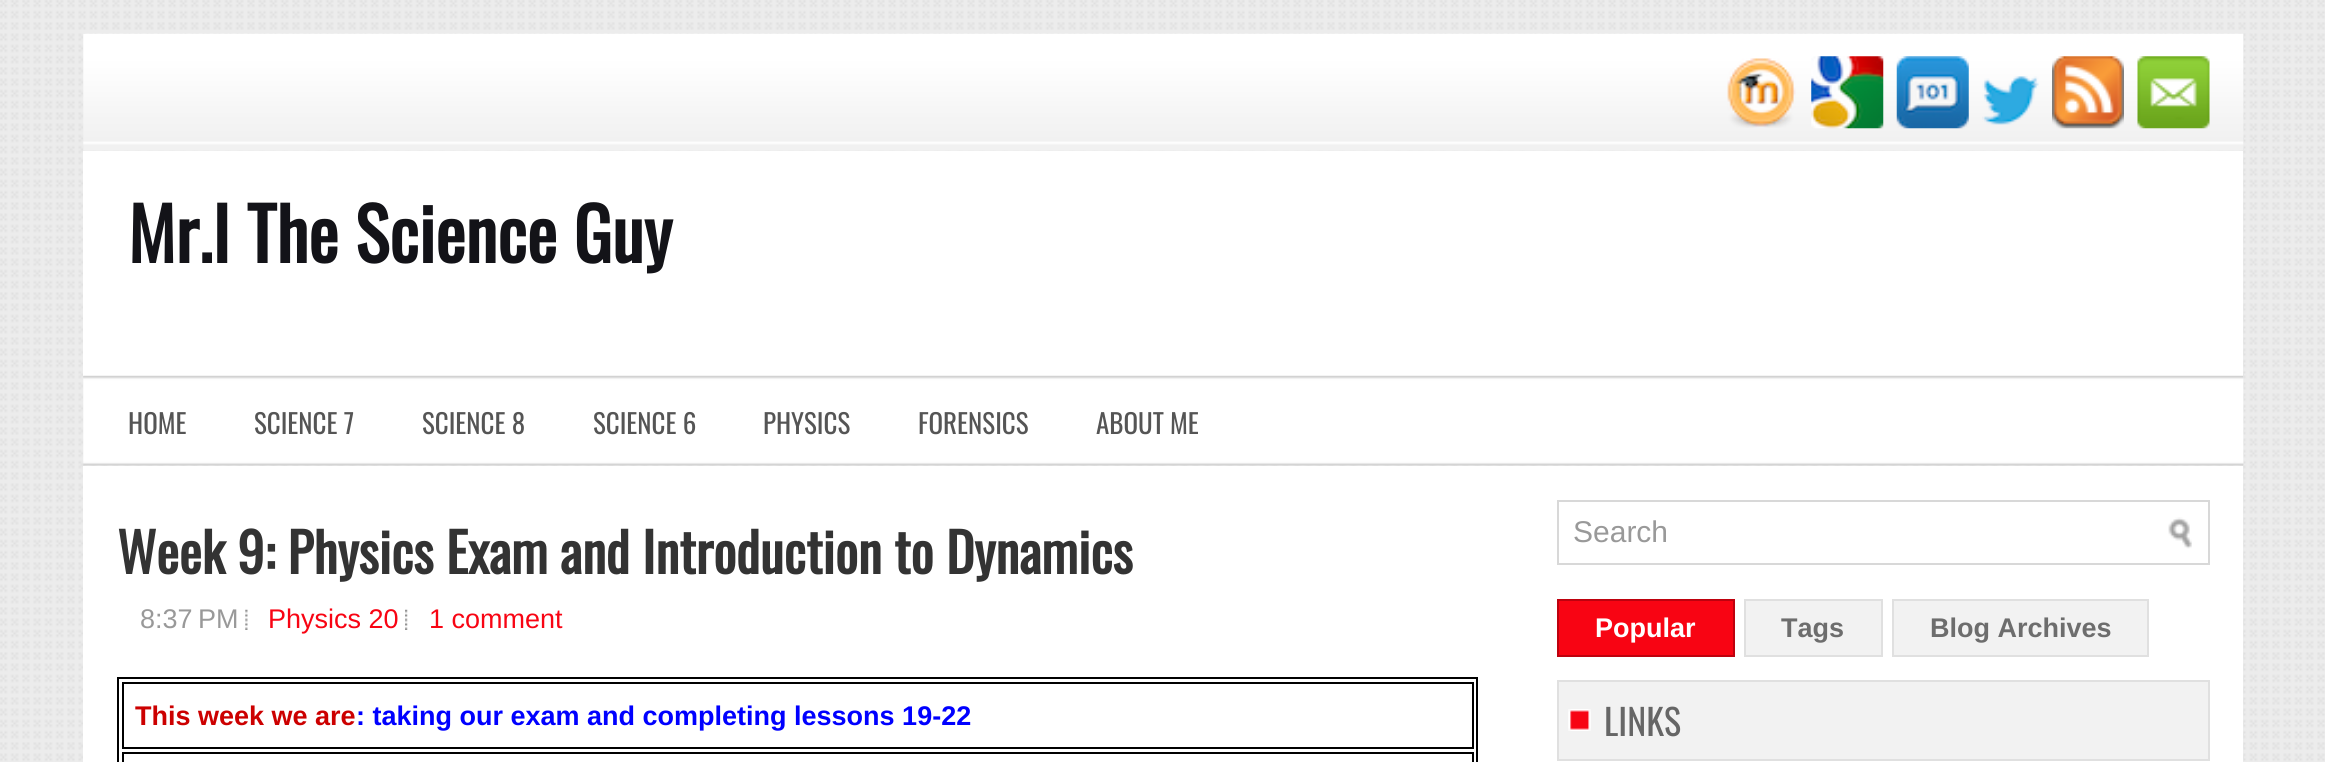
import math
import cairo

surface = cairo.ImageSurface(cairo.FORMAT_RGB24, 2325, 762)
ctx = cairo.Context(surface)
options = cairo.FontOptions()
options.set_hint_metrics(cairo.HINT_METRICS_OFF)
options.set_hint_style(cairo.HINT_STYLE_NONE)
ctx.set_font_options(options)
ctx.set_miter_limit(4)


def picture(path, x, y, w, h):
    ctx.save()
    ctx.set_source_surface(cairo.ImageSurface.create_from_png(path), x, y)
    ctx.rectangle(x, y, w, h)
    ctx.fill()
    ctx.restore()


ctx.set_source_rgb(1, 1, 1)
ctx.paint()
picture("img1.png", 0, 0, 2325, 762)
picture("img2.png", 83, 33, 2161, 118)
picture("img3.png", 1727, 58, 69, 70)
picture("img4.png", 1811, 56, 73, 73)
picture("img5.png", 1896, 56, 73, 73)
picture("img6.png", 1982, 76, 57, 49)
picture("img7.png", 2052, 56, 72, 73)
picture("img8.png", 2137, 56, 73, 73)
ctx.set_source_rgb(1, 1, 1)
ctx.rectangle(83, 151, 2160, 225)
ctx.fill()
ctx.select_font_face("Oswald", cairo.FONT_SLANT_NORMAL, cairo.FONT_WEIGHT_BOLD)
ctx.set_font_size(72)
ctx.set_source_rgb(0.075, 0.078, 0.094)
ctx.move_to(128, 263)
ctx.show_text("Mr.I The Science Guy")
picture("img9.png", 83, 375, 2161, 91)
ctx.select_font_face("Oswald")
ctx.set_font_size(27)
ctx.set_source_rgb(0.333, 0.333, 0.333)
ctx.move_to(128, 434)
ctx.show_text("HOME")
ctx.move_to(254, 434)
ctx.show_text("SCIENCE 7")
ctx.move_to(422, 434)
ctx.show_text("SCIENCE 8")
ctx.move_to(593, 434)
ctx.show_text("SCIENCE 6")
ctx.move_to(763, 434)
ctx.show_text("PHYSICS")
ctx.move_to(918, 434)
ctx.show_text("FORENSICS")
ctx.move_to(1096, 434)
ctx.show_text("ABOUT ME")
ctx.set_source_rgb(1, 1, 1)
ctx.rectangle(83, 466, 2160, 296)
ctx.fill()
ctx.select_font_face("Oswald", cairo.FONT_SLANT_NORMAL, cairo.FONT_WEIGHT_BOLD)
ctx.set_font_size(54)
ctx.set_source_rgb(0.2, 0.2, 0.2)
ctx.move_to(117, 574)
ctx.show_text("Week 9: Physics Exam and Introduction to Dynamics")
ctx.select_font_face("Liberation Sans")
ctx.set_font_size(27)
ctx.set_source_rgb(0.6, 0.6, 0.6)
ctx.move_to(140, 628)
ctx.show_text("8:37 PM")
picture("img10.png", 245, 609, 3, 21)
ctx.set_source_rgb(0.969, 0.016, 0.075)
ctx.move_to(268, 628)
ctx.show_text("Physics 20")
picture("img11.png", 405, 609, 3, 21)
ctx.move_to(429, 628)
ctx.show_text("1 comment")
ctx.rectangle(118, 678, 1359, 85)
ctx.set_source_rgb(0, 0, 0)
ctx.stroke()
ctx.rectangle(123, 683, 1350, 65)
ctx.stroke()
ctx.select_font_face("Liberation Sans", cairo.FONT_SLANT_NORMAL, cairo.FONT_WEIGHT_BOLD)
ctx.set_source_rgb(0.8, 0, 0)
ctx.move_to(135, 725)
ctx.show_text("This week we are")
ctx.set_source_rgb(0, 0, 1)
ctx.move_to(356, 725)
ctx.show_text(": taking our exam and completing lessons 19-22")
ctx.rectangle(123, 753, 1350, 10)
ctx.set_source_rgb(0, 0, 0)
ctx.stroke()
picture("img12.png", 2168, 517, 24, 32)
ctx.rectangle(1558, 501, 651, 63)
ctx.set_source_rgb(0.847, 0.847, 0.847)
ctx.stroke()
ctx.select_font_face("Liberation Sans")
ctx.set_font_size(30)
ctx.set_source_rgb(0.6, 0.6, 0.6)
ctx.move_to(1573, 542)
ctx.show_text("Search")
ctx.set_source_rgb(0.969, 0.016, 0.075)
ctx.rectangle(1558, 600, 176, 56)
ctx.fill_preserve()
ctx.set_source_rgb(0.745, 0.004, 0.055)
ctx.stroke()
ctx.select_font_face("Liberation Sans", cairo.FONT_SLANT_NORMAL, cairo.FONT_WEIGHT_BOLD)
ctx.set_font_size(27)
ctx.set_source_rgb(1, 1, 1)
ctx.move_to(1595, 637)
ctx.show_text("Popular")
ctx.set_source_rgb(0.949, 0.949, 0.949)
ctx.rectangle(1745, 600, 137, 56)
ctx.fill_preserve()
ctx.set_source_rgb(0.878, 0.878, 0.878)
ctx.stroke()
ctx.set_source_rgb(0.427, 0.427, 0.427)
ctx.move_to(1781, 637)
ctx.show_text("Tags")
ctx.set_source_rgb(0.949, 0.949, 0.949)
ctx.rectangle(1893, 600, 255, 56)
ctx.fill_preserve()
ctx.set_source_rgb(0.878, 0.878, 0.878)
ctx.stroke()
ctx.set_source_rgb(0.427, 0.427, 0.427)
ctx.move_to(1930, 637)
ctx.show_text("Blog Archives")
ctx.set_source_rgb(0.949, 0.949, 0.949)
ctx.rectangle(1559, 682, 649, 77)
ctx.fill()
picture("img13.png", 1568, 709, 23, 22)
ctx.rectangle(1558, 681, 651, 79)
ctx.set_source_rgb(0.878, 0.878, 0.878)
ctx.stroke()
ctx.select_font_face("Oswald")
ctx.set_font_size(36)
ctx.set_source_rgb(0.4, 0.4, 0.4)
ctx.move_to(1604, 736)
ctx.show_text("LINKS")
surface.write_to_png("page.png")
